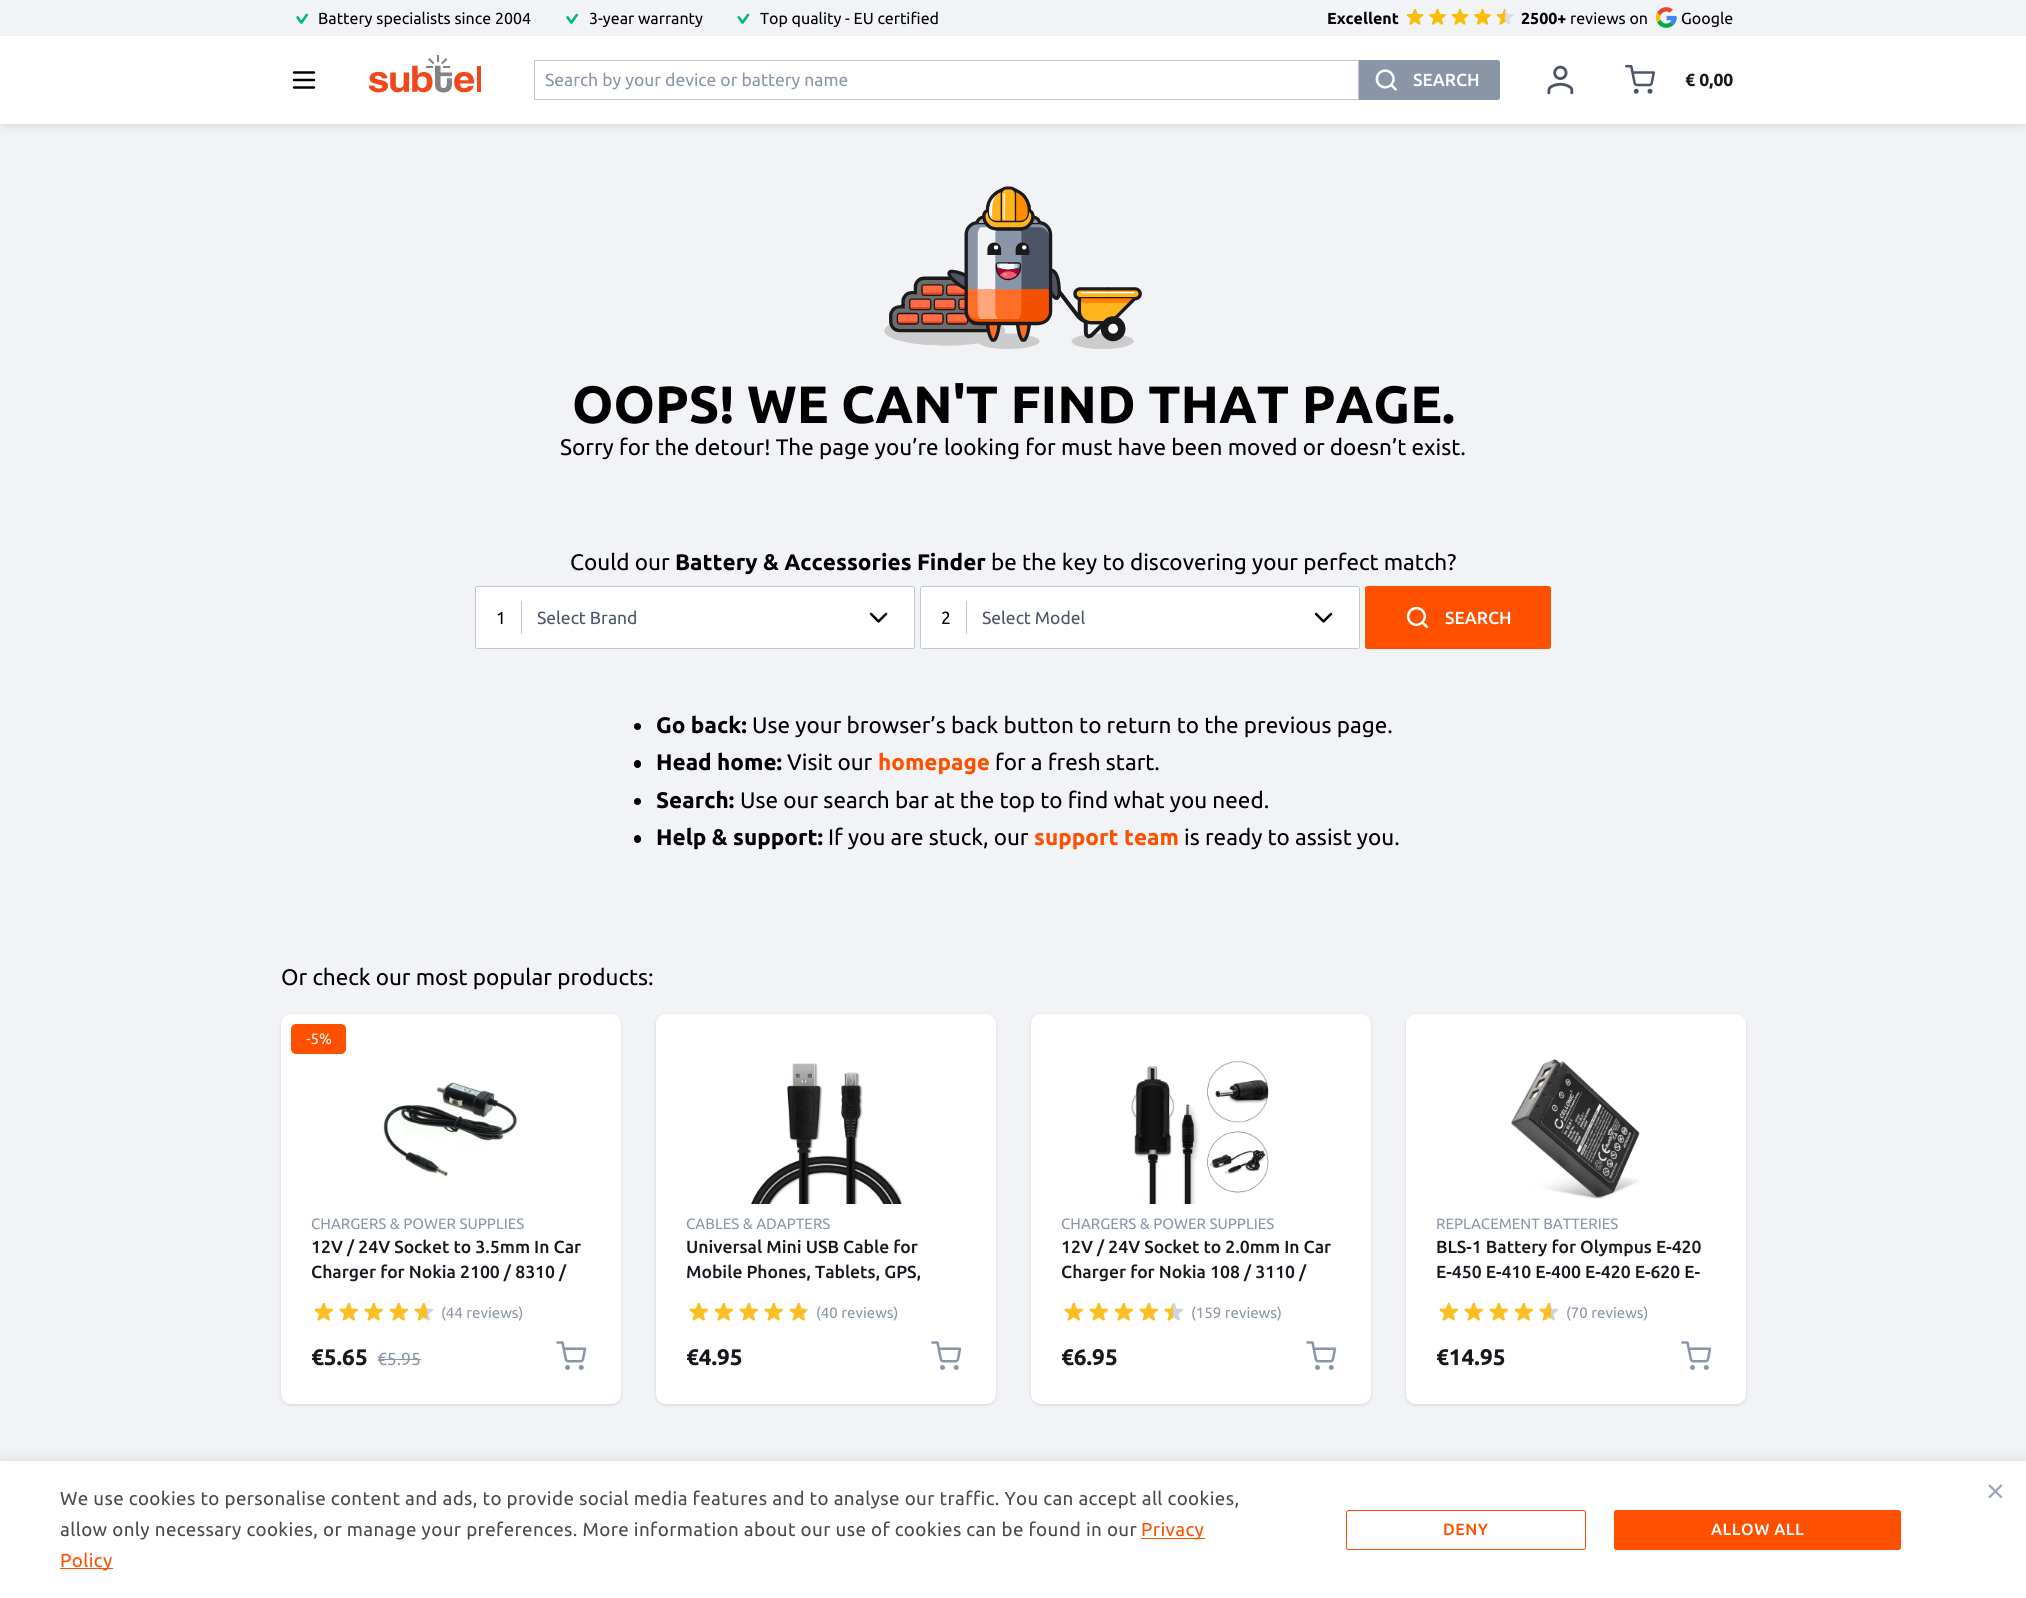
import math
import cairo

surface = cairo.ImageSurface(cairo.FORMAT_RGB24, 2026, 1598)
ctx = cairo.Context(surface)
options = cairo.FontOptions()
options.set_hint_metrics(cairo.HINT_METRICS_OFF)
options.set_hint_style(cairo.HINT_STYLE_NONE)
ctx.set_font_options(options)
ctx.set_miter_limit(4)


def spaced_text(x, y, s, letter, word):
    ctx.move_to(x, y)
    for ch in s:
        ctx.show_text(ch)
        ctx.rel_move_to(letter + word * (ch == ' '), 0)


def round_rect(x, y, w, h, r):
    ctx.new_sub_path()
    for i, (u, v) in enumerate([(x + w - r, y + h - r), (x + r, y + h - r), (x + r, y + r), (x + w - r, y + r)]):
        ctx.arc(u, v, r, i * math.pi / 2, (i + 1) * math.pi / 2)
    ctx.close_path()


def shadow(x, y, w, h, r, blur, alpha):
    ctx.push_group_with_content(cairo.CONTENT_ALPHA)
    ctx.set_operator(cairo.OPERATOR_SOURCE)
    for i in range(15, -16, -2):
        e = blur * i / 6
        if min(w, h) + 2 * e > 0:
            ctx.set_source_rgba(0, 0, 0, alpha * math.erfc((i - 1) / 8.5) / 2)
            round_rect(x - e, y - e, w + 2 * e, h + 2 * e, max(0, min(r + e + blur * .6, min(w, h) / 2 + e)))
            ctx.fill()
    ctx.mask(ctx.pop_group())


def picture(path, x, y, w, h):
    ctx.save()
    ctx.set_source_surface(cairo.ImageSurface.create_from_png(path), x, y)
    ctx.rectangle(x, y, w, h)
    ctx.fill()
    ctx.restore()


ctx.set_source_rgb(0.945, 0.953, 0.961)
ctx.paint()
picture("img1.png", 296, 13, 12, 11)
ctx.select_font_face("Ubuntu")
ctx.set_font_size(16)
ctx.set_source_rgb(0, 0, 0)
ctx.move_to(318, 24)
ctx.show_text("Battery specialists since 2004")
picture("img1.png", 566, 13, 12, 11)
ctx.move_to(589, 24)
ctx.show_text("3-year warranty")
picture("img2.png", 737, 13, 13, 11)
ctx.move_to(760, 24)
ctx.show_text("Top quality - EU certified")
ctx.select_font_face("Ubuntu", cairo.FONT_SLANT_NORMAL, cairo.FONT_WEIGHT_BOLD)
ctx.move_to(1327, 24)
ctx.show_text("Excellent")
picture("img3.png", 1406, 8, 18, 17)
picture("img4.png", 1429, 8, 17, 17)
picture("img3.png", 1451, 8, 18, 17)
picture("img4.png", 1474, 8, 17, 17)
picture("img5.png", 1496, 8, 18, 17)
ctx.move_to(1521, 24)
ctx.show_text("2500+")
ctx.select_font_face("Ubuntu")
ctx.move_to(1570, 24)
ctx.show_text("reviews on")
picture("img6.png", 1655, 7, 22, 21)
ctx.move_to(1681, 24)
ctx.show_text("Google")
ctx.set_source_rgb(0.063, 0.094, 0.157)
shadow(3, 44, 2021, 82, 0, 5, 0.1)
shadow(3, 41, 2021, 83, 0, 2.5, 0.06)
ctx.set_source_rgb(1, 1, 1)
ctx.rectangle(0, 36, 2026, 88)
ctx.fill()
ctx.new_path()
ctx.move_to(294, 72.5)
ctx.line_to(314, 72.5)
ctx.move_to(294, 80)
ctx.line_to(314, 80)
ctx.move_to(294, 87.5)
ctx.line_to(314, 87.5)
ctx.set_source_rgb(0, 0, 0)
ctx.set_line_width(2.5)
ctx.set_line_cap(cairo.LINE_CAP_ROUND)
ctx.set_line_join(cairo.LINE_JOIN_ROUND)
ctx.stroke()
picture("img7.png", 369, 55, 112, 38)
ctx.rectangle(534.5, 60.5, 824, 39)
ctx.set_source_rgb(0.757, 0.784, 0.824)
ctx.set_line_width(1)
ctx.set_line_cap(cairo.LINE_CAP_BUTT)
ctx.set_line_join(cairo.LINE_JOIN_MITER)
ctx.stroke()
ctx.set_font_size(17.5)
ctx.set_source_rgb(0.541, 0.588, 0.659)
ctx.move_to(545, 86)
ctx.show_text("Search by your device or battery name")
ctx.new_path()
ctx.move_to(1359, 60)
ctx.line_to(1497.5, 60)
ctx.curve_to(1499, 60, 1500, 61, 1500, 62.5)
ctx.line_to(1500, 97.5)
ctx.curve_to(1500, 99, 1499, 100, 1497.5, 100)
ctx.line_to(1359, 100)
ctx.close_path()
ctx.fill()
picture("img8.png", 1375, 69, 22, 22)
ctx.select_font_face("Ubuntu Medium")
ctx.set_source_rgb(1, 1, 1)
ctx.move_to(1413, 86)
ctx.show_text("SEARCH")
picture("img9.png", 1547, 65, 27, 30)
picture("img10.png", 1625, 65, 30, 29)
ctx.select_font_face("Ubuntu", cairo.FONT_SLANT_NORMAL, cairo.FONT_WEIGHT_BOLD)
ctx.set_source_rgb(0.086, 0.094, 0.114)
ctx.move_to(1685, 86)
ctx.show_text("€ 0,00")
picture("img11.png", 884, 186, 258, 163)
ctx.set_font_size(52.5)
ctx.set_source_rgb(0, 0, 0)
ctx.move_to(572, 423)
ctx.show_text("OOPS! WE CAN'T FIND THAT PAGE.")
ctx.select_font_face("Ubuntu")
ctx.set_font_size(22.5)
ctx.move_to(560, 455)
ctx.show_text("Sorry for the detour! The page you’re looking for must have been moved or doesn’t exist.")
ctx.move_to(570, 570)
ctx.show_text("Could our")
ctx.select_font_face("Ubuntu", cairo.FONT_SLANT_NORMAL, cairo.FONT_WEIGHT_BOLD)
ctx.move_to(675, 570)
ctx.show_text("Battery & Accessories Finder")
ctx.select_font_face("Ubuntu")
ctx.move_to(991, 570)
ctx.show_text("be the key to discovering your perfect match?")
ctx.set_source_rgb(1, 1, 1)
round_rect(475.5, 586.5, 439, 62, 2)
ctx.fill_preserve()
ctx.set_source_rgb(0.757, 0.784, 0.824)
ctx.stroke()
ctx.rectangle(521, 601, 1, 33)
ctx.fill()
ctx.set_font_size(17.5)
ctx.set_source_rgb(0, 0, 0)
ctx.move_to(496, 624)
ctx.show_text("1")
ctx.set_source_rgb(0.298, 0.333, 0.404)
ctx.move_to(537, 624)
ctx.show_text("Select Brand")
picture("img12.png", 869, 612, 19, 11)
ctx.set_source_rgb(1, 1, 1)
round_rect(920.5, 586.5, 439, 62, 2)
ctx.fill_preserve()
ctx.set_source_rgb(0.757, 0.784, 0.824)
ctx.stroke()
ctx.rectangle(966, 601, 1, 33)
ctx.fill()
ctx.set_source_rgb(0, 0, 0)
ctx.move_to(941, 624)
ctx.show_text("2")
ctx.set_source_rgb(0.298, 0.333, 0.404)
ctx.move_to(982, 624)
ctx.show_text("Select Model")
picture("img12.png", 1314, 612, 19, 11)
ctx.set_source_rgb(1, 0.314, 0)
round_rect(1365, 586, 186, 63, 2.5)
ctx.fill()
picture("img13.png", 1406, 606, 23, 23)
ctx.select_font_face("Ubuntu Medium")
ctx.set_source_rgb(1, 1, 1)
ctx.move_to(1445, 624)
ctx.show_text("SEARCH")
ctx.set_source_rgb(0, 0, 0)
ctx.new_path()
ctx.arc(637.5, 726.5, 3.5, 0, 2 * math.pi)
ctx.fill()
ctx.select_font_face("Ubuntu", cairo.FONT_SLANT_NORMAL, cairo.FONT_WEIGHT_BOLD)
ctx.set_font_size(22.5)
ctx.move_to(656, 733)
ctx.show_text("Go back:")
ctx.select_font_face("Ubuntu")
ctx.move_to(752, 733)
ctx.show_text("Use your browser’s back button to return to the previous page.")
round_rect(634, 760, 7, 8, 3.5)
ctx.fill()
ctx.select_font_face("Ubuntu", cairo.FONT_SLANT_NORMAL, cairo.FONT_WEIGHT_BOLD)
ctx.move_to(656, 770)
ctx.show_text("Head home:")
ctx.select_font_face("Ubuntu")
ctx.move_to(787, 770)
ctx.show_text("Visit our")
ctx.select_font_face("Ubuntu", cairo.FONT_SLANT_NORMAL, cairo.FONT_WEIGHT_BOLD)
ctx.set_source_rgb(1, 0.314, 0)
ctx.move_to(878, 770)
ctx.show_text("homepage")
ctx.select_font_face("Ubuntu")
ctx.set_source_rgb(0, 0, 0)
ctx.move_to(995, 770)
ctx.show_text("for a fresh start.")
ctx.new_path()
ctx.arc(637.5, 801.5, 3.5, 0, 2 * math.pi)
ctx.fill()
ctx.select_font_face("Ubuntu", cairo.FONT_SLANT_NORMAL, cairo.FONT_WEIGHT_BOLD)
ctx.move_to(656, 808)
ctx.show_text("Search:")
ctx.select_font_face("Ubuntu")
ctx.move_to(740, 808)
ctx.show_text("Use our search bar at the top to find what you need.")
round_rect(634, 835, 7, 8, 3.5)
ctx.fill()
ctx.select_font_face("Ubuntu", cairo.FONT_SLANT_NORMAL, cairo.FONT_WEIGHT_BOLD)
ctx.move_to(656, 845)
ctx.show_text("Help & support:")
ctx.select_font_face("Ubuntu")
ctx.move_to(828, 845)
ctx.show_text("If you are stuck, our")
ctx.select_font_face("Ubuntu", cairo.FONT_SLANT_NORMAL, cairo.FONT_WEIGHT_BOLD)
ctx.set_source_rgb(1, 0.314, 0)
ctx.move_to(1034, 845)
ctx.show_text("support team")
ctx.select_font_face("Ubuntu")
ctx.set_source_rgb(0, 0, 0)
ctx.move_to(1184, 845)
ctx.show_text("is ready to assist you.")
ctx.move_to(281, 985)
ctx.show_text("Or check our most popular products:")
ctx.set_source_rgb(0.063, 0.094, 0.157)
shadow(281, 1015, 340, 390, 10, 2, 0.1)
shadow(281, 1015, 340, 390, 10, 1, 0.06)
ctx.set_source_rgb(1, 1, 1)
round_rect(281, 1014, 340, 390, 10)
ctx.fill()
ctx.set_source_rgb(1, 0.314, 0)
round_rect(291, 1024, 55, 30, 5)
ctx.fill()
ctx.set_font_size(15)
ctx.set_source_rgb(1, 1, 1)
ctx.move_to(306, 1044)
ctx.show_text("-5%")
picture("img14.png", 383, 1081, 135, 96)
ctx.set_source_rgb(0.541, 0.588, 0.659)
ctx.move_to(311, 1229)
ctx.show_text("CHARGERS & POWER SUPPLIES")
ctx.select_font_face("Ubuntu Medium")
ctx.set_font_size(17.5)
ctx.set_source_rgb(0.086, 0.094, 0.114)
ctx.move_to(311, 1253)
ctx.show_text("12V / 24V Socket to 3.5mm In Car")
ctx.move_to(311, 1278)
ctx.show_text("Charger for Nokia 2100 / 8310 /")
picture("img15.png", 314, 1302, 19, 19)
picture("img15.png", 339, 1302, 19, 19)
picture("img15.png", 364, 1302, 19, 19)
picture("img15.png", 389, 1302, 19, 19)
picture("img16.png", 414, 1302, 19, 19)
ctx.select_font_face("Ubuntu")
ctx.set_font_size(15)
ctx.set_source_rgb(0.541, 0.588, 0.659)
ctx.move_to(441, 1318)
ctx.show_text("(44 reviews)")
ctx.select_font_face("Ubuntu", cairo.FONT_SLANT_NORMAL, cairo.FONT_WEIGHT_BOLD)
ctx.set_font_size(22.5)
ctx.set_source_rgb(0.086, 0.094, 0.114)
ctx.move_to(311, 1365)
ctx.show_text("€5.65")
ctx.select_font_face("Ubuntu")
ctx.set_font_size(17.5)
ctx.set_source_rgb(0.541, 0.588, 0.659)
ctx.move_to(377, 1365)
ctx.show_text("€5.95")
ctx.rectangle(378, 1359, 43, 1)
ctx.fill()
picture("img17.png", 556, 1341, 31, 29)
ctx.set_source_rgb(0.063, 0.094, 0.157)
shadow(656, 1015, 340, 390, 10, 2, 0.1)
shadow(656, 1015, 340, 390, 10, 1, 0.06)
ctx.set_source_rgb(1, 1, 1)
round_rect(656, 1014, 340, 390, 10)
ctx.fill()
picture("img18.png", 751, 1063, 151, 141)
ctx.set_font_size(15)
ctx.set_source_rgb(0.541, 0.588, 0.659)
ctx.move_to(686, 1229)
ctx.show_text("CABLES & ADAPTERS")
ctx.select_font_face("Ubuntu Medium")
ctx.set_font_size(17.5)
ctx.set_source_rgb(0.086, 0.094, 0.114)
ctx.move_to(686, 1253)
ctx.show_text("Universal Mini USB Cable for")
ctx.move_to(686, 1278)
ctx.show_text("Mobile Phones, Tablets, GPS,")
picture("img15.png", 689, 1302, 19, 19)
picture("img15.png", 714, 1302, 19, 19)
picture("img15.png", 739, 1302, 19, 19)
picture("img15.png", 764, 1302, 19, 19)
picture("img19.png", 789, 1302, 19, 19)
ctx.select_font_face("Ubuntu")
ctx.set_font_size(15)
ctx.set_source_rgb(0.541, 0.588, 0.659)
ctx.move_to(816, 1318)
ctx.show_text("(40 reviews)")
ctx.select_font_face("Ubuntu", cairo.FONT_SLANT_NORMAL, cairo.FONT_WEIGHT_BOLD)
ctx.set_font_size(22.5)
ctx.set_source_rgb(0.086, 0.094, 0.114)
ctx.move_to(686, 1365)
ctx.show_text("€4.95")
picture("img17.png", 931, 1341, 31, 29)
ctx.set_source_rgb(0.063, 0.094, 0.157)
shadow(1031, 1015, 340, 390, 10, 2, 0.1)
shadow(1031, 1015, 340, 390, 10, 1, 0.06)
ctx.set_source_rgb(1, 1, 1)
round_rect(1031, 1014, 340, 390, 10)
ctx.fill()
picture("img20.png", 1131, 1061, 138, 143)
ctx.select_font_face("Ubuntu")
ctx.set_font_size(15)
ctx.set_source_rgb(0.541, 0.588, 0.659)
ctx.move_to(1061, 1229)
ctx.show_text("CHARGERS & POWER SUPPLIES")
ctx.select_font_face("Ubuntu Medium")
ctx.set_font_size(17.5)
ctx.set_source_rgb(0.086, 0.094, 0.114)
ctx.move_to(1061, 1253)
ctx.show_text("12V / 24V Socket to 2.0mm In Car")
ctx.move_to(1061, 1278)
ctx.show_text("Charger for Nokia 108 / 3110 /")
picture("img15.png", 1064, 1302, 19, 19)
picture("img15.png", 1089, 1302, 19, 19)
picture("img15.png", 1114, 1302, 19, 19)
picture("img15.png", 1139, 1302, 19, 19)
picture("img21.png", 1164, 1302, 19, 19)
ctx.select_font_face("Ubuntu")
ctx.set_font_size(15)
ctx.set_source_rgb(0.541, 0.588, 0.659)
ctx.move_to(1191, 1318)
ctx.show_text("(159 reviews)")
ctx.select_font_face("Ubuntu", cairo.FONT_SLANT_NORMAL, cairo.FONT_WEIGHT_BOLD)
ctx.set_font_size(22.5)
ctx.set_source_rgb(0.086, 0.094, 0.114)
ctx.move_to(1061, 1365)
ctx.show_text("€6.95")
picture("img17.png", 1306, 1341, 31, 29)
ctx.set_source_rgb(0.063, 0.094, 0.157)
shadow(1406, 1015, 340, 390, 10, 2, 0.1)
shadow(1406, 1015, 340, 390, 10, 1, 0.06)
ctx.set_source_rgb(1, 1, 1)
round_rect(1406, 1014, 340, 390, 10)
ctx.fill()
picture("img22.png", 1511, 1059, 129, 140)
ctx.select_font_face("Ubuntu")
ctx.set_font_size(15)
ctx.set_source_rgb(0.541, 0.588, 0.659)
ctx.move_to(1436, 1229)
ctx.show_text("REPLACEMENT BATTERIES")
ctx.select_font_face("Ubuntu Medium")
ctx.set_font_size(17.5)
ctx.set_source_rgb(0.086, 0.094, 0.114)
ctx.move_to(1436, 1253)
ctx.show_text("BLS-1 Battery for Olympus E-420")
ctx.move_to(1436, 1278)
ctx.show_text("E-450 E-410 E-400 E-420 E-620 E-")
picture("img15.png", 1439, 1302, 19, 19)
picture("img15.png", 1464, 1302, 19, 19)
picture("img15.png", 1489, 1302, 19, 19)
picture("img15.png", 1514, 1302, 19, 19)
picture("img23.png", 1539, 1302, 19, 19)
ctx.select_font_face("Ubuntu")
ctx.set_font_size(15)
ctx.set_source_rgb(0.541, 0.588, 0.659)
ctx.move_to(1566, 1318)
ctx.show_text("(70 reviews)")
ctx.select_font_face("Ubuntu", cairo.FONT_SLANT_NORMAL, cairo.FONT_WEIGHT_BOLD)
ctx.set_font_size(22.5)
ctx.set_source_rgb(0.086, 0.094, 0.114)
ctx.move_to(1436, 1365)
ctx.show_text("€14.95")
picture("img17.png", 1681, 1341, 31, 29)
ctx.set_source_rgb(0, 0, 0)
shadow(0, 1459, 2026, 137, 0, 6, 0.1)
ctx.set_source_rgb(1, 1, 1)
ctx.rectangle(0, 1461, 2026, 137)
ctx.fill()
ctx.select_font_face("Ubuntu")
ctx.set_font_size(18.75)
ctx.set_source_rgb(0.29, 0.29, 0.29)
spaced_text(60, 1505, "We use cookies to personalise content and ads, to provide social media features and to analyse our traffic. You can accept all cookies,", 0.38, 0)
spaced_text(60, 1536, "allow only necessary cookies, or manage your preferences. More information about our use of cookies can be found in our", 0.38, 0)
ctx.set_source_rgb(1, 0.314, 0)
ctx.rectangle(1141, 1538, 64, 1)
ctx.fill()
spaced_text(1141, 1536, "Privacy", 0.38, 0)
ctx.rectangle(60, 1568, 53, 1)
ctx.fill()
spaced_text(60, 1567, "Policy", 0.38, 0)
round_rect(1346.5, 1510.5, 239, 39, 2)
ctx.stroke()
ctx.select_font_face("Ubuntu Medium")
ctx.set_font_size(16.25)
spaced_text(1443, 1535, "DENY", 0.5, 0)
round_rect(1614.5, 1510.5, 286, 39, 2)
ctx.fill_preserve()
ctx.stroke()
ctx.set_source_rgb(1, 1, 1)
spaced_text(1711, 1535, "ALLOW ALL", 0.5, 0)
ctx.select_font_face("Liberation Sans")
ctx.set_font_size(32)
ctx.set_source_rgb(0.612, 0.651, 0.71)
ctx.move_to(1986, 1502)
ctx.show_text("×")
surface.write_to_png("page.png")
